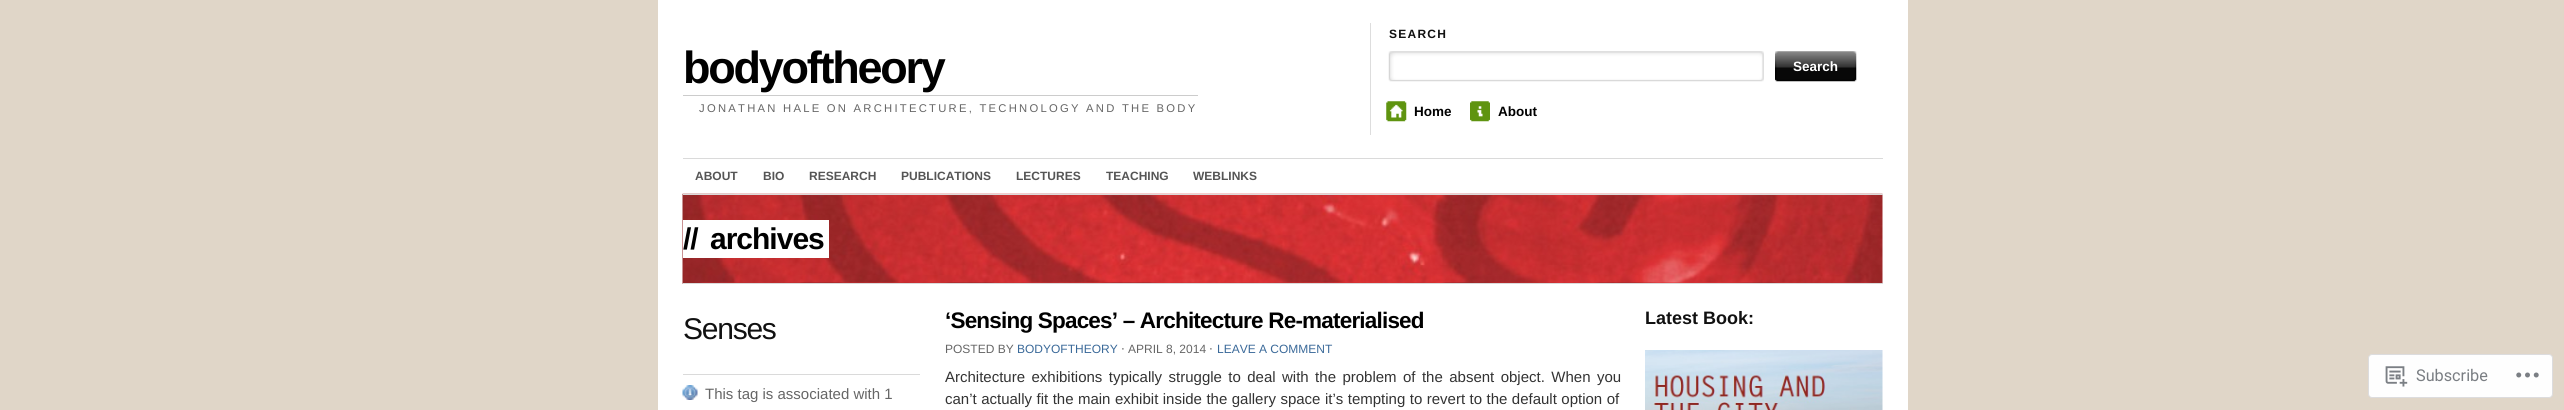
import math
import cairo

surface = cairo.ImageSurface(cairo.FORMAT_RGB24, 2564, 410)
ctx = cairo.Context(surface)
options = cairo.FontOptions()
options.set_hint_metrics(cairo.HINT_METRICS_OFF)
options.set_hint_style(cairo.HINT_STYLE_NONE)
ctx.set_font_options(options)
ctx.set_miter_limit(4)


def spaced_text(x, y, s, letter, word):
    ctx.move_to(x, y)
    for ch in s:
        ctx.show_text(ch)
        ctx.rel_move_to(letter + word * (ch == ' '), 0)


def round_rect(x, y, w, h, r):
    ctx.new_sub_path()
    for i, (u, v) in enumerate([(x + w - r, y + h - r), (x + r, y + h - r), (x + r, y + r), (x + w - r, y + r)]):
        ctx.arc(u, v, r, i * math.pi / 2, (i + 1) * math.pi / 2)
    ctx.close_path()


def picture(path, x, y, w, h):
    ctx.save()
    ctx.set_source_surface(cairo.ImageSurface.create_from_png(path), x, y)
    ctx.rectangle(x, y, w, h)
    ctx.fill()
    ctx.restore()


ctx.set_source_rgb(0.878, 0.839, 0.784)
ctx.paint()
ctx.set_source_rgb(1, 1, 1)
ctx.rectangle(658, 0, 1250, 410)
ctx.fill()
ctx.select_font_face("Liberation Sans", cairo.FONT_SLANT_NORMAL, cairo.FONT_WEIGHT_BOLD)
ctx.set_font_size(45)
ctx.set_source_rgb(0, 0, 0)
spaced_text(683, 83, "bodyoftheory", -2.25, 0)
ctx.set_source_rgb(0.8, 0.8, 0.8)
ctx.rectangle(683, 95, 515, 1)
ctx.fill()
ctx.select_font_face("Liberation Sans")
ctx.set_font_size(11.25)
ctx.set_source_rgb(0.4, 0.4, 0.4)
spaced_text(699, 112, "JONATHAN HALE ON ARCHITECTURE, TECHNOLOGY AND THE BODY", 2.25, 0)
ctx.set_source_rgb(0.867, 0.867, 0.867)
ctx.rectangle(1370, 23, 1, 112)
ctx.fill()
ctx.select_font_face("Liberation Sans", cairo.FONT_SLANT_NORMAL, cairo.FONT_WEIGHT_BOLD)
ctx.set_font_size(12)
ctx.set_source_rgb(0.067, 0.067, 0.067)
spaced_text(1389, 38, "SEARCH", 1.25, 0)
picture("img1.png", 1388, 51, 376, 31)
picture("img2.png", 1775, 51, 82, 31)
ctx.set_font_size(13.5)
ctx.set_source_rgb(1, 1, 1)
ctx.move_to(1793, 71)
ctx.show_text("Search")
picture("img3.png", 1386, 101, 21, 21)
ctx.set_source_rgb(0, 0, 0)
ctx.move_to(1414, 116)
ctx.show_text("Home")
picture("img4.png", 1470, 101, 20, 21)
ctx.move_to(1498, 116)
ctx.show_text("About")
ctx.set_source_rgb(0.855, 0.855, 0.855)
ctx.rectangle(683, 158, 1200, 1)
ctx.fill()
ctx.set_font_size(12)
ctx.set_source_rgb(0.333, 0.333, 0.333)
ctx.move_to(695, 180)
ctx.show_text("ABOUT")
ctx.move_to(763, 180)
ctx.show_text("BIO")
ctx.move_to(809, 180)
ctx.show_text("RESEARCH")
ctx.move_to(901, 180)
ctx.show_text("PUBLICATIONS")
ctx.move_to(1016, 180)
ctx.show_text("LECTURES")
ctx.move_to(1106, 180)
ctx.show_text("TEACHING")
ctx.move_to(1193, 180)
ctx.show_text("WEBLINKS")
picture("img5.png", 682, 193, 1201, 91)
ctx.set_source_rgb(0.855, 0.855, 0.855)
ctx.rectangle(683, 194, 1200, 1)
ctx.fill()
ctx.rectangle(683, 283, 1200, 1)
ctx.fill()
ctx.set_source_rgb(1, 1, 1)
ctx.rectangle(683, 220, 146, 38)
ctx.fill()
ctx.set_font_size(30)
ctx.set_source_rgb(0, 0, 0)
spaced_text(683, 249, "//", -1, 0)
spaced_text(710, 249, "archives", -1, 0)
ctx.select_font_face("Liberation Sans")
ctx.set_source_rgb(0.067, 0.067, 0.067)
spaced_text(683, 339, "Senses", -1.25, 0)
ctx.set_source_rgb(0.855, 0.855, 0.855)
ctx.rectangle(683, 374, 237, 1)
ctx.fill()
picture("img6.png", 682, 385, 16, 15)
ctx.set_font_size(15)
ctx.set_source_rgb(0.4, 0.4, 0.4)
ctx.move_to(705, 399)
ctx.show_text("This tag is associated with 1")
ctx.select_font_face("Liberation Sans", cairo.FONT_SLANT_NORMAL, cairo.FONT_WEIGHT_BOLD)
ctx.set_font_size(22.5)
ctx.set_source_rgb(0, 0, 0)
spaced_text(945, 328, "‘Sensing Spaces’ – Architecture Re-materialised", -0.8, 0)
ctx.select_font_face("Liberation Sans")
ctx.set_font_size(12)
ctx.set_source_rgb(0.4, 0.4, 0.4)
ctx.move_to(945, 353)
ctx.show_text("POSTED BY")
ctx.set_source_rgb(0.227, 0.412, 0.6)
ctx.move_to(1017, 353)
ctx.show_text("BODYOFTHEORY")
ctx.select_font_face("DejaVu Sans")
ctx.set_source_rgb(0.4, 0.4, 0.4)
ctx.move_to(1121, 353)
ctx.show_text("⋅")
ctx.select_font_face("Liberation Sans")
ctx.move_to(1128, 353)
ctx.show_text("APRIL 8, 2014")
ctx.select_font_face("DejaVu Sans")
ctx.move_to(1209, 353)
ctx.show_text("⋅")
ctx.select_font_face("Liberation Sans")
ctx.set_source_rgb(0.227, 0.412, 0.6)
ctx.move_to(1217, 353)
ctx.show_text("LEAVE A COMMENT")
ctx.set_font_size(15)
ctx.set_source_rgb(0.2, 0.2, 0.2)
spaced_text(945, 382, "Architecture exhibitions typically struggle to deal with the problem of the absent object. When you", 0, 2.25)
spaced_text(945, 404, "can’t actually fit the main exhibit inside the gallery space it’s tempting to revert to the default option of", 0, 0.3)
ctx.select_font_face("Liberation Sans", cairo.FONT_SLANT_NORMAL, cairo.FONT_WEIGHT_BOLD)
ctx.set_font_size(18)
ctx.set_source_rgb(0.067, 0.067, 0.067)
ctx.move_to(1645, 324)
ctx.show_text("Latest Book:")
picture("img7.png", 1645, 350, 238, 60)
ctx.set_source_rgb(0.996, 0.996, 0.996)
round_rect(2368.5, 354.5, 184, 43, 3.5)
ctx.fill_preserve()
ctx.set_source_rgb(0.863, 0.863, 0.871)
ctx.set_line_width(1)
ctx.stroke()
picture("img8.png", 2385, 366, 23, 21)
ctx.select_font_face("Roboto")
ctx.set_font_size(16.25)
ctx.set_source_rgb(0.478, 0.494, 0.514)
ctx.move_to(2416, 381)
ctx.show_text("Subscribe")
picture("img9.png", 2516, 372, 23, 6)
surface.write_to_png("page.png")
